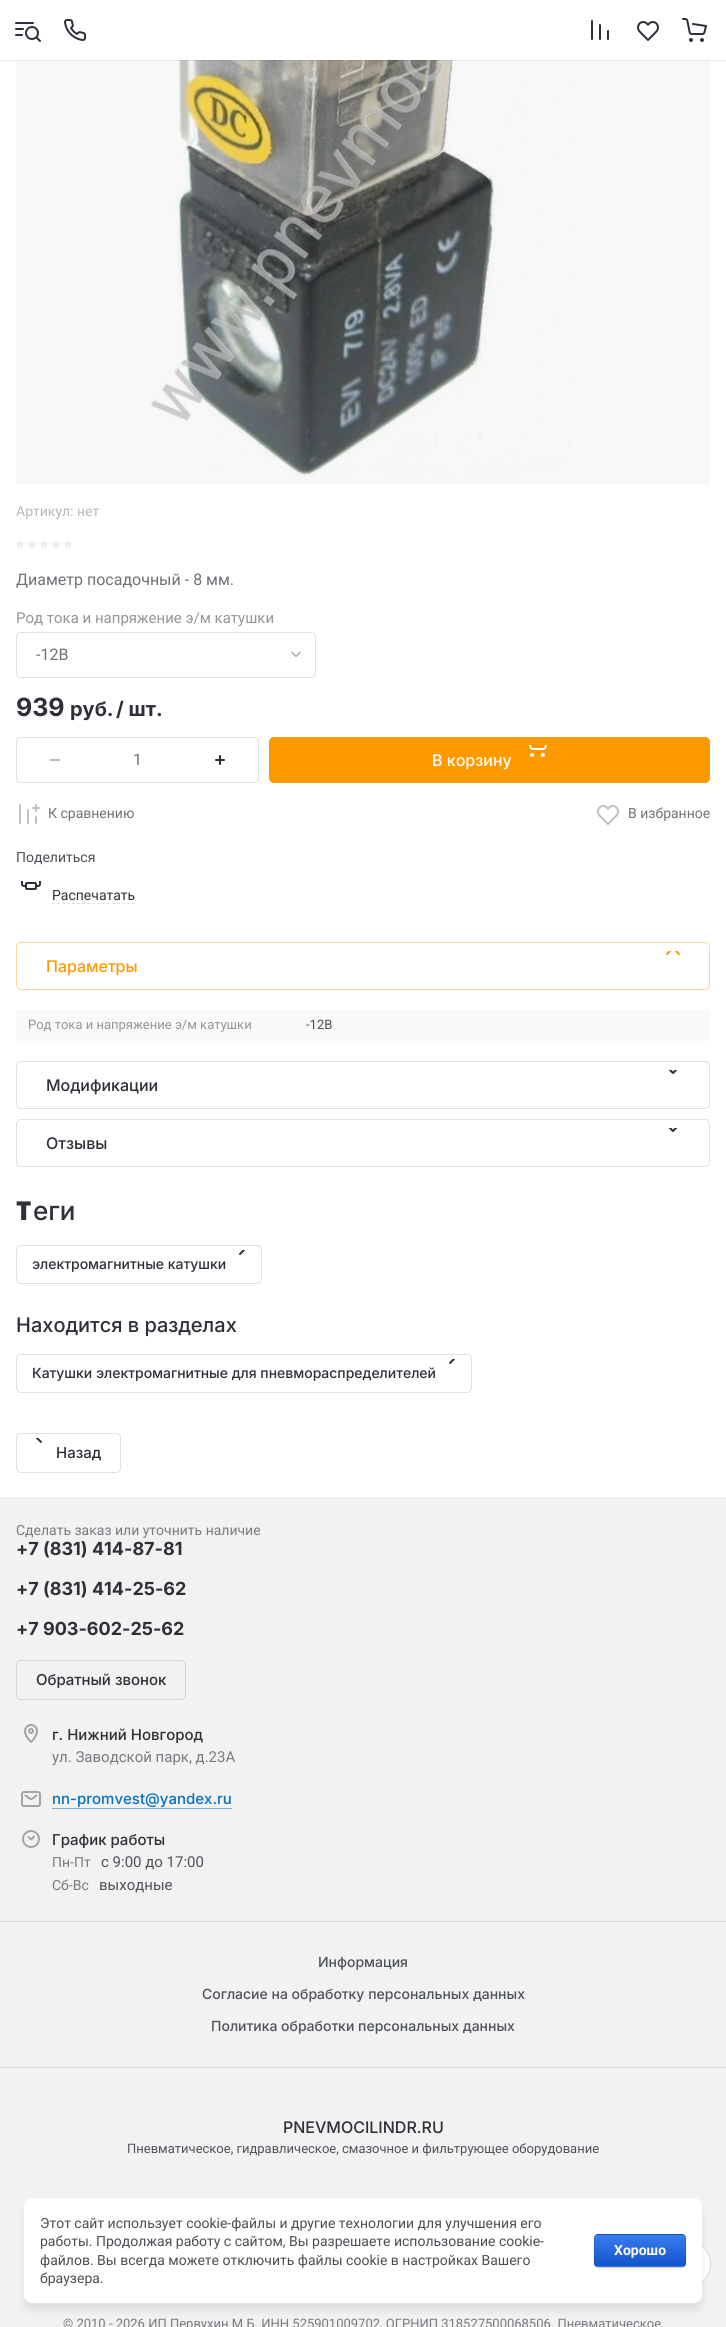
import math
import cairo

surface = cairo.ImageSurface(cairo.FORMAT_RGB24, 726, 2327)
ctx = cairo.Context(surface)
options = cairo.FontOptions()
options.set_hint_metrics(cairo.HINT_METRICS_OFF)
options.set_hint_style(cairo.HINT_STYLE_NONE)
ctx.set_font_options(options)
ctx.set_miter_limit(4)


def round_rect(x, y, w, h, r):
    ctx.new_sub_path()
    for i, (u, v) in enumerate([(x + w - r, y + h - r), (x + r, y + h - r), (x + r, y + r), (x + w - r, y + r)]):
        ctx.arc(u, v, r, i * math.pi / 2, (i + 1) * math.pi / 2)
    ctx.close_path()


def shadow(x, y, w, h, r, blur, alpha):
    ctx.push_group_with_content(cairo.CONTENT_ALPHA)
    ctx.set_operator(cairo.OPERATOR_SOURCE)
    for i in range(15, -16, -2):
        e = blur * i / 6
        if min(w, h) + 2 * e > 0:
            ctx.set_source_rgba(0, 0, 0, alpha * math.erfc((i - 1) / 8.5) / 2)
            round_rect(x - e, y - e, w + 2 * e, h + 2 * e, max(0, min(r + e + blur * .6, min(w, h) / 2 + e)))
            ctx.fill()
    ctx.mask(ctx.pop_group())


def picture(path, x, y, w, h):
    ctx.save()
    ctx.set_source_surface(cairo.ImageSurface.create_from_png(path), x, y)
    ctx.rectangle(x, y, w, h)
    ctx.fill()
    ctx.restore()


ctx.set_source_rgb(1, 1, 1)
ctx.paint()
picture("img6.png", 150, 60, 422, 417)
ctx.set_source_rgba(0, 0, 0, 0.03)
ctx.rectangle(16, 60, 694, 424)
ctx.fill()
ctx.set_source_rgba(0, 0, 0, 0.08)
ctx.rectangle(0, 60, 726, 1)
ctx.fill()
picture("img1.png", 15, 22, 26, 20)
picture("img2.png", 64, 19, 22, 22)
picture("img3.png", 591, 20, 18, 20)
picture("img4.png", 637, 21, 22, 20)
picture("img5.png", 682, 18, 25, 24)
ctx.select_font_face("Roboto")
ctx.set_font_size(14)
ctx.set_source_rgb(0.718, 0.722, 0.733)
ctx.move_to(16, 516)
ctx.show_text("Артикул: нет")
picture("img7.png", 15, 540, 58, 9)
ctx.set_font_size(16)
ctx.set_source_rgb(0.435, 0.443, 0.463)
ctx.move_to(16, 585)
ctx.show_text("Диаметр посадочный - 8 мм.")
ctx.set_font_size(15)
ctx.set_source_rgb(0.576, 0.584, 0.596)
ctx.move_to(16, 623)
ctx.show_text("Род тока и напряжение э/м катушки")
round_rect(16.5, 632.5, 299, 45, 4.5)
ctx.set_source_rgb(0.878, 0.878, 0.878)
ctx.set_line_width(1)
ctx.stroke()
ctx.set_font_size(16)
ctx.set_source_rgb(0.435, 0.443, 0.463)
ctx.move_to(36, 660)
ctx.show_text("-12В")
picture("img8.png", 291, 651, 10, 6)
ctx.select_font_face("Inter", cairo.FONT_SLANT_NORMAL, cairo.FONT_WEIGHT_BOLD)
ctx.set_font_size(25)
ctx.set_source_rgb(0.18, 0.184, 0.22)
ctx.move_to(16, 716)
ctx.show_text("939")
ctx.set_font_size(20)
ctx.move_to(70, 716)
ctx.show_text("руб.")
ctx.move_to(116, 716)
ctx.show_text("/ шт.")
round_rect(16.5, 737.5, 242, 45, 4.5)
ctx.set_source_rgb(0.878, 0.878, 0.878)
ctx.stroke()
picture("img9.png", 50, 759, 10, 2)
ctx.select_font_face("Roboto")
ctx.set_font_size(16)
ctx.set_source_rgb(0.435, 0.443, 0.463)
ctx.move_to(133, 765)
ctx.show_text("1")
picture("img10.png", 215, 755, 10, 10)
ctx.set_source_rgb(1, 0.6, 0)
round_rect(269, 737, 441, 46, 5)
ctx.fill()
picture("img11.png", 529, 745, 18, 12)
ctx.select_font_face("Inter Medium")
ctx.set_source_rgb(1, 1, 1)
ctx.move_to(432, 766)
ctx.show_text("В корзину")
picture("img12.png", 19, 804, 21, 20)
ctx.select_font_face("Roboto")
ctx.set_font_size(14)
ctx.set_source_rgb(0.435, 0.443, 0.463)
ctx.move_to(48, 818)
ctx.show_text("К сравнению")
picture("img13.png", 597, 805, 22, 20)
ctx.move_to(628, 818)
ctx.show_text("В избранное")
ctx.set_source_rgb(0.294, 0.306, 0.329)
ctx.move_to(16, 862)
ctx.show_text("Поделиться")
picture("img14.png", 21, 881, 20, 9)
ctx.set_source_rgb(0.18, 0.184, 0.22)
ctx.move_to(52, 900)
ctx.show_text("Распечатать")
ctx.new_path()
ctx.move_to(52, 903.5)
ctx.line_to(135, 903.5)
ctx.set_source_rgb(0.878, 0.878, 0.878)
ctx.set_dash([3, 2])
ctx.stroke()
round_rect(16.5, 942.5, 693, 47, 4.5)
ctx.set_source_rgb(1, 0.839, 0.6)
ctx.set_dash([])
ctx.stroke()
picture("img15.png", 666, 951, 14, 4)
ctx.select_font_face("Inter Medium")
ctx.set_font_size(16)
ctx.set_source_rgb(1, 0.6, 0)
ctx.move_to(46, 972)
ctx.show_text("Параметры")
ctx.set_source_rgb(0.976, 0.976, 0.976)
ctx.rectangle(16, 1010, 694, 31)
ctx.fill()
ctx.select_font_face("Roboto")
ctx.set_font_size(13)
ctx.set_source_rgb(0.576, 0.584, 0.596)
ctx.move_to(28, 1029)
ctx.show_text("Род тока и напряжение э/м катушки")
ctx.set_source_rgb(0.294, 0.306, 0.329)
ctx.move_to(306, 1029)
ctx.show_text("-12В")
round_rect(16.5, 1061.5, 693, 47, 4.5)
ctx.set_source_rgb(0.878, 0.878, 0.878)
ctx.stroke()
picture("img16.png", 668, 1070, 10, 4)
ctx.select_font_face("Inter Medium")
ctx.set_font_size(16)
ctx.set_source_rgb(0.18, 0.184, 0.22)
ctx.move_to(46, 1091)
ctx.show_text("Модификации")
round_rect(16.5, 1119.5, 693, 47, 4.5)
ctx.set_source_rgb(0.878, 0.878, 0.878)
ctx.stroke()
picture("img16.png", 668, 1128, 10, 4)
ctx.set_source_rgb(0.18, 0.184, 0.22)
ctx.move_to(46, 1149)
ctx.show_text("Отзывы")
ctx.select_font_face("Noto Sans Black")
ctx.set_font_size(26)
ctx.move_to(16, 1220)
ctx.show_text("Т")
ctx.select_font_face("Inter Medium")
ctx.move_to(33, 1220)
ctx.show_text("еги")
round_rect(16.5, 1245.5, 245, 38, 4.5)
ctx.set_source_rgb(0.878, 0.878, 0.878)
ctx.stroke()
picture("img17.png", 239, 1250, 6, 5)
ctx.set_font_size(14)
ctx.set_source_rgb(0.18, 0.184, 0.22)
ctx.move_to(32, 1269)
ctx.show_text("электромагнитные катушки")
ctx.set_font_size(20)
ctx.move_to(16, 1332)
ctx.show_text("Находится в разделах")
round_rect(16.5, 1354.5, 455, 38, 4.5)
ctx.set_source_rgb(0.878, 0.878, 0.878)
ctx.stroke()
picture("img17.png", 449, 1359, 6, 5)
ctx.set_font_size(14)
ctx.set_source_rgb(0.18, 0.184, 0.22)
ctx.move_to(32, 1378)
ctx.show_text("Катушки электромагнитные для пневмораспределителей")
round_rect(16.5, 1433.5, 104, 39, 4.5)
ctx.set_source_rgb(0.878, 0.878, 0.878)
ctx.stroke()
picture("img18.png", 36, 1438, 6, 5)
ctx.set_font_size(15)
ctx.set_source_rgb(0.18, 0.184, 0.22)
ctx.move_to(56, 1458)
ctx.show_text("Назад")
ctx.set_source_rgb(0.949, 0.949, 0.949)
ctx.rectangle(0, 1497, 726, 830)
ctx.fill()
ctx.select_font_face("Roboto")
ctx.set_font_size(14)
ctx.set_source_rgb(0.467, 0.478, 0.502)
ctx.move_to(16, 1535)
ctx.show_text("Сделать заказ или уточнить наличие")
ctx.select_font_face("Inter", cairo.FONT_SLANT_NORMAL, cairo.FONT_WEIGHT_BOLD)
ctx.set_font_size(18)
ctx.set_source_rgb(0.18, 0.184, 0.22)
ctx.move_to(16, 1555)
ctx.show_text("+7 (831) 414-87-81")
ctx.move_to(16, 1595)
ctx.show_text("+7 (831) 414-25-62")
ctx.move_to(16, 1635)
ctx.show_text("+7 903-602-25-62")
round_rect(16.5, 1660.5, 169, 39, 4.5)
ctx.set_source_rgb(0.835, 0.835, 0.835)
ctx.stroke()
ctx.select_font_face("Inter Medium")
ctx.set_font_size(15)
ctx.set_source_rgb(0.18, 0.184, 0.22)
ctx.move_to(36, 1685)
ctx.show_text("Обратный звонок")
picture("img19.png", 24, 1724, 14, 19)
ctx.move_to(52, 1740)
ctx.show_text("г. Нижний Новгород")
ctx.select_font_face("Roboto")
ctx.set_source_rgb(0.467, 0.478, 0.502)
ctx.move_to(52, 1762)
ctx.show_text("ул. Заводской парк, д.23А")
picture("img20.png", 21, 1791, 20, 16)
ctx.select_font_face("Inter Medium")
ctx.set_source_rgb(0.016, 0.439, 0.769)
ctx.move_to(52, 1804)
ctx.show_text("nn-promvest@yandex.ru")
ctx.set_source_rgb(0.482, 0.694, 0.859)
ctx.rectangle(52, 1808, 180, 1)
ctx.fill()
picture("img21.png", 22, 1830, 18, 18)
ctx.set_source_rgb(0.18, 0.184, 0.22)
ctx.move_to(52, 1845)
ctx.show_text("График работы")
ctx.select_font_face("Roboto")
ctx.set_font_size(14)
ctx.set_source_rgb(0.467, 0.478, 0.502)
ctx.move_to(52, 1867)
ctx.show_text("Пн-Пт")
ctx.set_font_size(15)
ctx.set_source_rgb(0.306, 0.322, 0.353)
ctx.move_to(101, 1867)
ctx.show_text("с 9:00 до 17:00")
ctx.set_font_size(14)
ctx.set_source_rgb(0.467, 0.478, 0.502)
ctx.move_to(52, 1890)
ctx.show_text("Сб-Вс")
ctx.set_font_size(15)
ctx.set_source_rgb(0.306, 0.322, 0.353)
ctx.move_to(99, 1890)
ctx.show_text("выходные")
ctx.set_source_rgb(0.835, 0.835, 0.835)
ctx.rectangle(0, 1921, 726, 1)
ctx.fill()
ctx.select_font_face("Inter Medium")
ctx.set_font_size(14)
ctx.set_source_rgb(0.306, 0.322, 0.353)
ctx.move_to(318, 1967)
ctx.show_text("Информация")
ctx.move_to(202, 1999)
ctx.show_text("Согласие на обработку персональных данных")
ctx.move_to(211, 2031)
ctx.show_text("Политика обработки персональных данных")
ctx.set_source_rgb(0.835, 0.835, 0.835)
ctx.rectangle(0, 2067, 726, 1)
ctx.fill()
ctx.set_font_size(16)
ctx.set_source_rgb(0.18, 0.184, 0.22)
ctx.move_to(283, 2133)
ctx.show_text("PNEVMOCILINDR.RU")
ctx.select_font_face("Roboto")
ctx.set_font_size(13)
ctx.set_source_rgb(0.306, 0.322, 0.353)
ctx.move_to(127, 2153)
ctx.show_text("Пневматическое, гидравлическое, смазочное и фильтрующее оборудование")
ctx.set_source_rgb(0.467, 0.478, 0.502)
ctx.move_to(63, 2328)
ctx.show_text("© 2010 - 2026 ИП Первухин М.Б. ИНН 525901009702, ОГРНИП 318527500068506. Пневматическое,")
ctx.new_path()
ctx.arc(687, 2264, 23.5, 0, 2 * math.pi)
ctx.set_source_rgb(0.835, 0.835, 0.835)
ctx.stroke()
ctx.set_source_rgb(1, 1, 1)
ctx.arc(687, 2264, 23, 0, 2 * math.pi)
ctx.fill()
ctx.set_source_rgb(0, 0, 0)
shadow(24, 2206, 678, 105, 8, 4, 0.08)
ctx.set_source_rgb(1, 1, 1)
round_rect(24, 2198, 678, 105, 8)
ctx.fill()
ctx.set_font_size(14)
ctx.set_source_rgb(0.294, 0.306, 0.329)
ctx.move_to(40, 2228)
ctx.show_text("Этот сайт использует cookie-файлы и другие технологии для улучшения его")
ctx.move_to(40, 2246)
ctx.show_text("работы. Продолжая работу с сайтом, Вы разрешаете использование cookie-")
ctx.move_to(40, 2265)
ctx.show_text("файлов. Вы всегда можете отключить файлы cookie в настройках Вашего")
ctx.move_to(40, 2283)
ctx.show_text("браузера.")
ctx.set_source_rgb(0, 0, 0)
shadow(594, 2235, 92, 33, 4, 0.5, 0.2)
ctx.save()
round_rect(594, 2234, 92, 33, 4)
ctx.clip()
gradient = cairo.LinearGradient(640, 2204, 640, 2235)
gradient.add_color_stop_rgba(0, 0.231, 0.486, 0.937, 1)
gradient.add_color_stop_rgba(1, 0.067, 0.333, 0.8, 1)
ctx.set_source(gradient)
ctx.rectangle(594, 2234, 92, 1)
ctx.fill()
gradient = cairo.LinearGradient(640, 2235, 640, 2266)
gradient.add_color_stop_rgba(0, 0.231, 0.486, 0.937, 1)
gradient.add_color_stop_rgba(1, 0.067, 0.333, 0.8, 1)
ctx.set_source(gradient)
ctx.rectangle(594, 2235, 92, 31)
ctx.fill()
gradient = cairo.LinearGradient(640, 2266, 640, 2297)
gradient.add_color_stop_rgba(0, 0.231, 0.486, 0.937, 1)
gradient.add_color_stop_rgba(1, 0.067, 0.333, 0.8, 1)
ctx.set_source(gradient)
ctx.rectangle(594, 2266, 92, 1)
ctx.fill()
ctx.restore()
round_rect(594.5, 2234.5, 91, 32, 3.5)
ctx.set_source_rgba(0, 0, 0, 0.1)
ctx.stroke()
ctx.select_font_face("Roboto", cairo.FONT_SLANT_NORMAL, cairo.FONT_WEIGHT_BOLD)
ctx.set_source_rgb(1, 1, 1)
ctx.move_to(614, 2255)
ctx.show_text("Хорошо")
surface.write_to_png("page.png")
